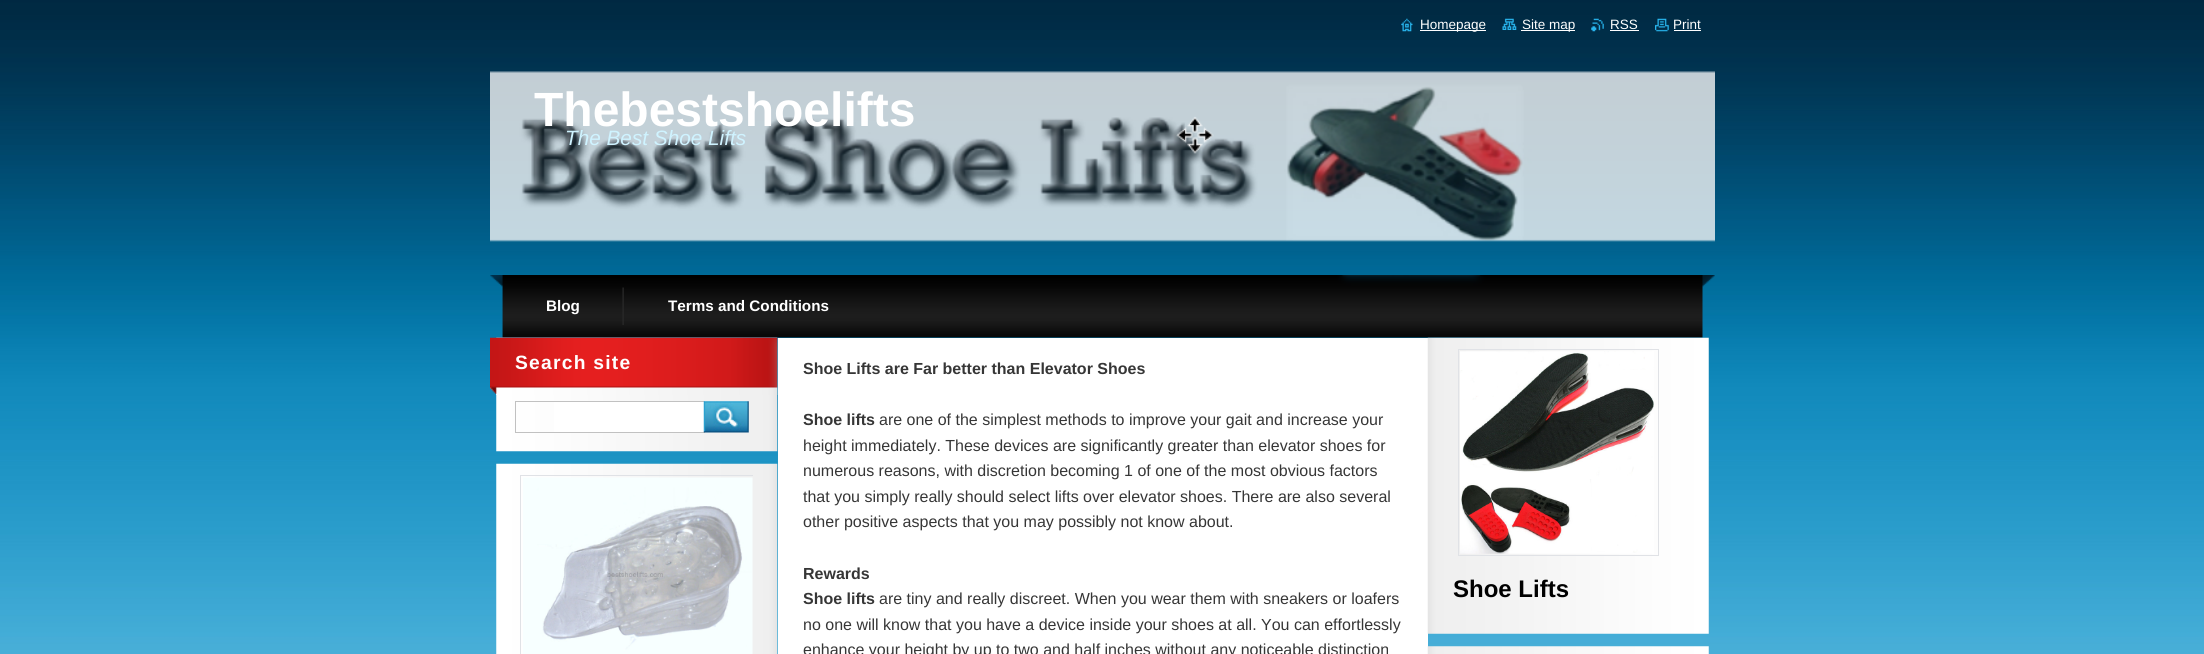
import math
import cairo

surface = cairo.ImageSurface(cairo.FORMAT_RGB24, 2204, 654)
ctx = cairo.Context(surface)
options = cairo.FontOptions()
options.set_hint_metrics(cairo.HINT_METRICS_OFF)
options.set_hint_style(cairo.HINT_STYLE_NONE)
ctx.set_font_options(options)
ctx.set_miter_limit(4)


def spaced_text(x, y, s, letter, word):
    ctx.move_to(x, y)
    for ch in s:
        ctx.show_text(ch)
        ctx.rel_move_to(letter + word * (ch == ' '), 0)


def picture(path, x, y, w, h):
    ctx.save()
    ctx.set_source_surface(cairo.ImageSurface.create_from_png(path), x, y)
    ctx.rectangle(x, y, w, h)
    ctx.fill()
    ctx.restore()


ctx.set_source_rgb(1, 1, 1)
ctx.paint()
picture("img1.png", 0, 0, 2204, 654)
picture("img2.png", 1401, 18, 12, 14)
ctx.set_source_rgb(1, 1, 1)
ctx.rectangle(1420, 30, 66, 1)
ctx.fill()
ctx.select_font_face("Liberation Sans")
ctx.set_font_size(13.5)
ctx.move_to(1420, 29)
ctx.show_text("Homepage")
picture("img3.png", 1502, 18, 15, 12)
ctx.rectangle(1521, 30, 54, 1)
ctx.fill()
ctx.move_to(1522, 29)
ctx.show_text("Site map")
picture("img4.png", 1591, 18, 13, 14)
ctx.move_to(1610, 29)
ctx.show_text("RSS")
ctx.rectangle(1610, 30, 29, 1)
ctx.fill()
picture("img5.png", 1655, 18, 14, 14)
ctx.move_to(1673, 29)
ctx.show_text("Print")
ctx.rectangle(1674, 30, 27, 1)
ctx.fill()
picture("img6.png", 490, 71, 1225, 171)
ctx.select_font_face("Liberation Sans", cairo.FONT_SLANT_NORMAL, cairo.FONT_WEIGHT_BOLD)
ctx.set_font_size(48)
ctx.move_to(534, 126)
ctx.show_text("Thebestshoelifts")
ctx.select_font_face("Liberation Sans", cairo.FONT_SLANT_ITALIC)
ctx.set_font_size(20.75)
ctx.set_source_rgb(0.812, 0.953, 1)
ctx.move_to(565, 145)
ctx.show_text("The Best Shoe Lifts")
picture("img7.png", 490, 275, 1225, 63)
picture("img8.png", 622, 287, 2, 38)
ctx.select_font_face("Liberation Sans", cairo.FONT_SLANT_NORMAL, cairo.FONT_WEIGHT_BOLD)
ctx.set_font_size(15.25)
ctx.set_source_rgb(1, 1, 1)
ctx.move_to(546, 311)
ctx.show_text("Blog")
ctx.move_to(668, 311)
ctx.show_text("Terms and Conditions")
picture("img9.png", 496, 337, 282, 115)
picture("img10.png", 490, 337, 288, 58)
ctx.set_font_size(19.25)
spaced_text(515, 369, "Search site", 1.25, 0)
ctx.rectangle(554, 402, 150, 30)
ctx.fill()
ctx.rectangle(515.5, 401.5, 189, 31)
ctx.set_source_rgb(0.757, 0.757, 0.757)
ctx.set_line_width(1)
ctx.stroke()
picture("img11.png", 703, 401, 46, 32)
picture("img12.png", 496, 463, 282, 191)
ctx.save()
ctx.rectangle(515, 464, 238, 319)
ctx.clip()
ctx.rectangle(520.5, 475.5, 248, 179)
ctx.set_source_rgb(0.878, 0.886, 0.902)
ctx.stroke()
ctx.restore()
picture("img13.png", 523, 477, 230, 177)
ctx.set_source_rgb(1, 1, 1)
ctx.rectangle(778, 338, 650, 316)
ctx.fill()
ctx.set_font_size(16)
ctx.set_source_rgb(0.212, 0.212, 0.212)
ctx.move_to(803, 374)
ctx.show_text("Shoe Lifts are Far better than Elevator Shoes")
ctx.move_to(803, 425)
ctx.show_text("Shoe lifts")
ctx.select_font_face("Liberation Sans")
ctx.move_to(879, 425)
ctx.show_text("are one of the simplest methods to improve your gait and increase your")
ctx.move_to(803, 451)
ctx.show_text("height immediately. These devices are significantly greater than elevator shoes for")
ctx.move_to(803, 476)
ctx.show_text("numerous reasons, with discretion becoming 1 of one of the most obvious factors")
ctx.move_to(803, 502)
ctx.show_text("that you simply really should select lifts over elevator shoes. There are also several")
ctx.move_to(803, 527)
ctx.show_text("other positive aspects that you may possibly not know about.")
ctx.select_font_face("Liberation Sans", cairo.FONT_SLANT_NORMAL, cairo.FONT_WEIGHT_BOLD)
ctx.move_to(803, 579)
ctx.show_text("Rewards")
ctx.move_to(803, 604)
ctx.show_text("Shoe lifts")
ctx.select_font_face("Liberation Sans")
ctx.move_to(879, 604)
ctx.show_text("are tiny and really discreet. When you wear them with sneakers or loafers")
ctx.move_to(803, 630)
ctx.show_text("no one will know that you have a device inside your shoes at all. You can effortlessly")
ctx.move_to(803, 655)
ctx.show_text("enhance your height by up to two and half inches without any noticeable distinction")
picture("img14.png", 1427, 337, 282, 297)
ctx.rectangle(1458.5, 349.5, 200, 206)
ctx.set_source_rgb(0.878, 0.886, 0.902)
ctx.stroke()
picture("img15.png", 1460, 351, 194, 203)
ctx.select_font_face("Liberation Sans", cairo.FONT_SLANT_NORMAL, cairo.FONT_WEIGHT_BOLD)
ctx.set_font_size(24)
ctx.set_source_rgb(0, 0, 0)
ctx.move_to(1453, 597)
ctx.show_text("Shoe Lifts")
picture("img16.png", 1427, 646, 282, 8)
surface.write_to_png("page.png")
